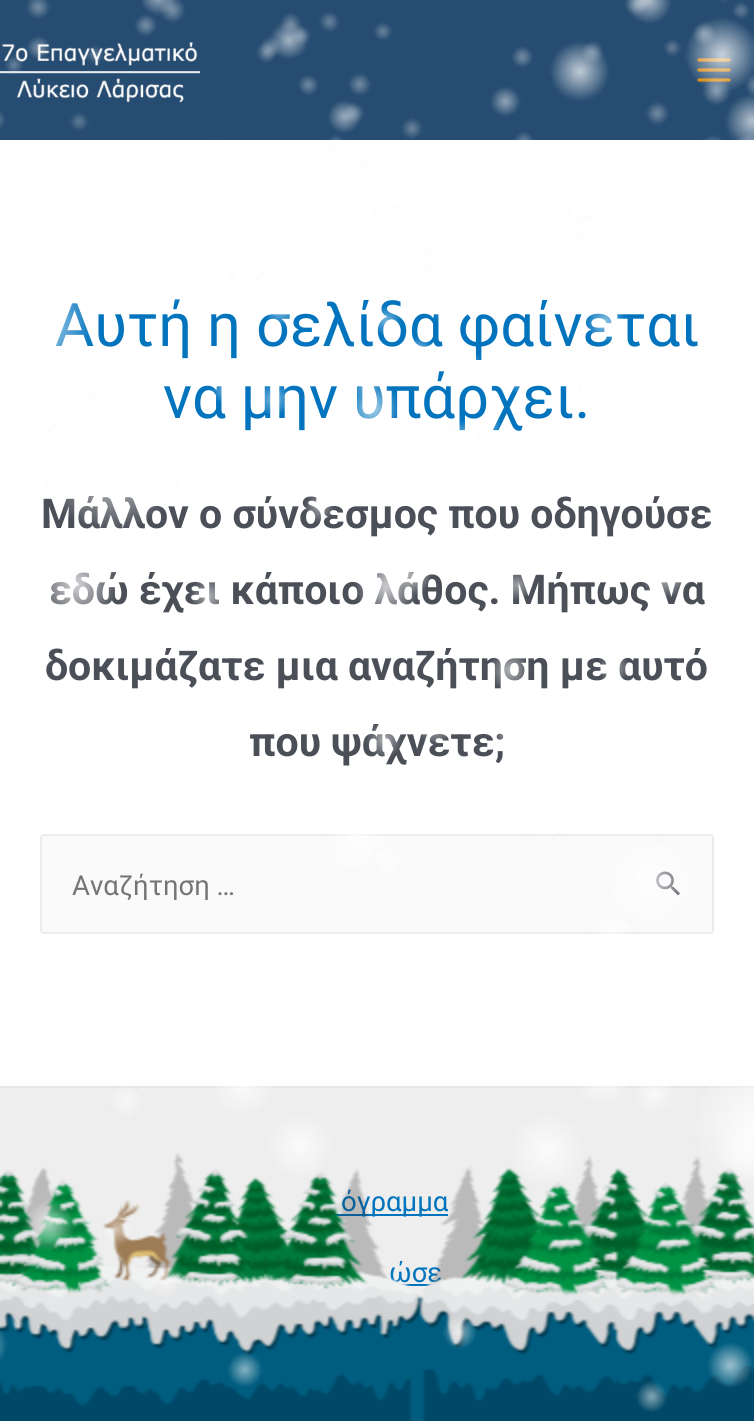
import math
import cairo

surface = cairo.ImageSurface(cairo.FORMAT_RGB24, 754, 1421)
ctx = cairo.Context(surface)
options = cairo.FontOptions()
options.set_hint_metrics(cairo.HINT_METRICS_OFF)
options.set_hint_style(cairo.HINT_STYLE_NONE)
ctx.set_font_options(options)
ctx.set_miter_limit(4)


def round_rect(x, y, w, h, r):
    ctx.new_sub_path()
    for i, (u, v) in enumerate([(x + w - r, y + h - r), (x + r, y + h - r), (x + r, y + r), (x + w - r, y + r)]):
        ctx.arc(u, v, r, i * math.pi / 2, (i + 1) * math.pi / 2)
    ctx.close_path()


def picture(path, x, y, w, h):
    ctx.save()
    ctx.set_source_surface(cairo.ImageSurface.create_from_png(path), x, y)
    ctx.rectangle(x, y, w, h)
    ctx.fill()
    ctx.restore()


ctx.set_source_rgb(1, 1, 1)
ctx.paint()
ctx.set_source_rgb(0.149, 0.298, 0.443)
ctx.rectangle(0, 0, 754, 140)
ctx.fill()
picture("img2.png", 0, 42, 200, 61)
picture("img3.png", 697, 58, 34, 24)
ctx.select_font_face("Roboto")
ctx.set_font_size(60)
ctx.set_source_rgb(0.008, 0.455, 0.745)
ctx.move_to(55, 346)
ctx.show_text("Αυτή η σελίδα φαίνεται")
ctx.move_to(163, 418)
ctx.show_text("να μην υπάρχει.")
ctx.select_font_face("Roboto", cairo.FONT_SLANT_NORMAL, cairo.FONT_WEIGHT_BOLD)
ctx.set_font_size(41)
ctx.set_source_rgb(0.294, 0.31, 0.345)
ctx.move_to(41, 528)
ctx.show_text("Μάλλον ο σύνδεσμος που οδηγούσε")
ctx.move_to(49, 604)
ctx.show_text("εδώ έχει κάποιο λάθος. Μήπως να")
ctx.move_to(45, 680)
ctx.show_text("δοκιμάζατε μια αναζήτηση με αυτό")
ctx.move_to(249, 756)
ctx.show_text("που ψάχνετε;")
ctx.set_source_rgb(0.98, 0.98, 0.98)
round_rect(41, 835, 672, 98, 3)
ctx.fill_preserve()
ctx.set_source_rgb(0.918, 0.918, 0.918)
ctx.stroke()
ctx.save()
ctx.rectangle(72, 868, 542, 32)
ctx.clip()
ctx.select_font_face("Roboto")
ctx.set_font_size(27.5)
ctx.set_source_rgb(0.459, 0.459, 0.459)
ctx.move_to(72, 895)
ctx.show_text("Αναζήτηση …")
ctx.restore()
picture("img4.png", 656, 871, 24, 25)
ctx.set_source_rgb(0.933, 0.933, 0.933)
ctx.rectangle(0, 1088, 754, 211)
ctx.fill()
ctx.set_source_rgb(0.902, 0.902, 0.902)
ctx.rectangle(0, 1086, 754, 2)
ctx.fill()
ctx.set_source_rgb(0.008, 0.455, 0.745)
ctx.rectangle(333, 1214, 115, 2)
ctx.fill()
ctx.select_font_face("Roboto")
ctx.set_font_size(27.5)
ctx.move_to(341, 1211)
ctx.show_text("όγραμμα")
ctx.move_to(389, 1282)
ctx.show_text("ώσε")
ctx.rectangle(398, 1284, 38, 2)
ctx.fill()
picture("img5.png", 0, 1153, 754, 268)
picture("img1.png", 0, 0, 754, 1412)
surface.write_to_png("page.png")
